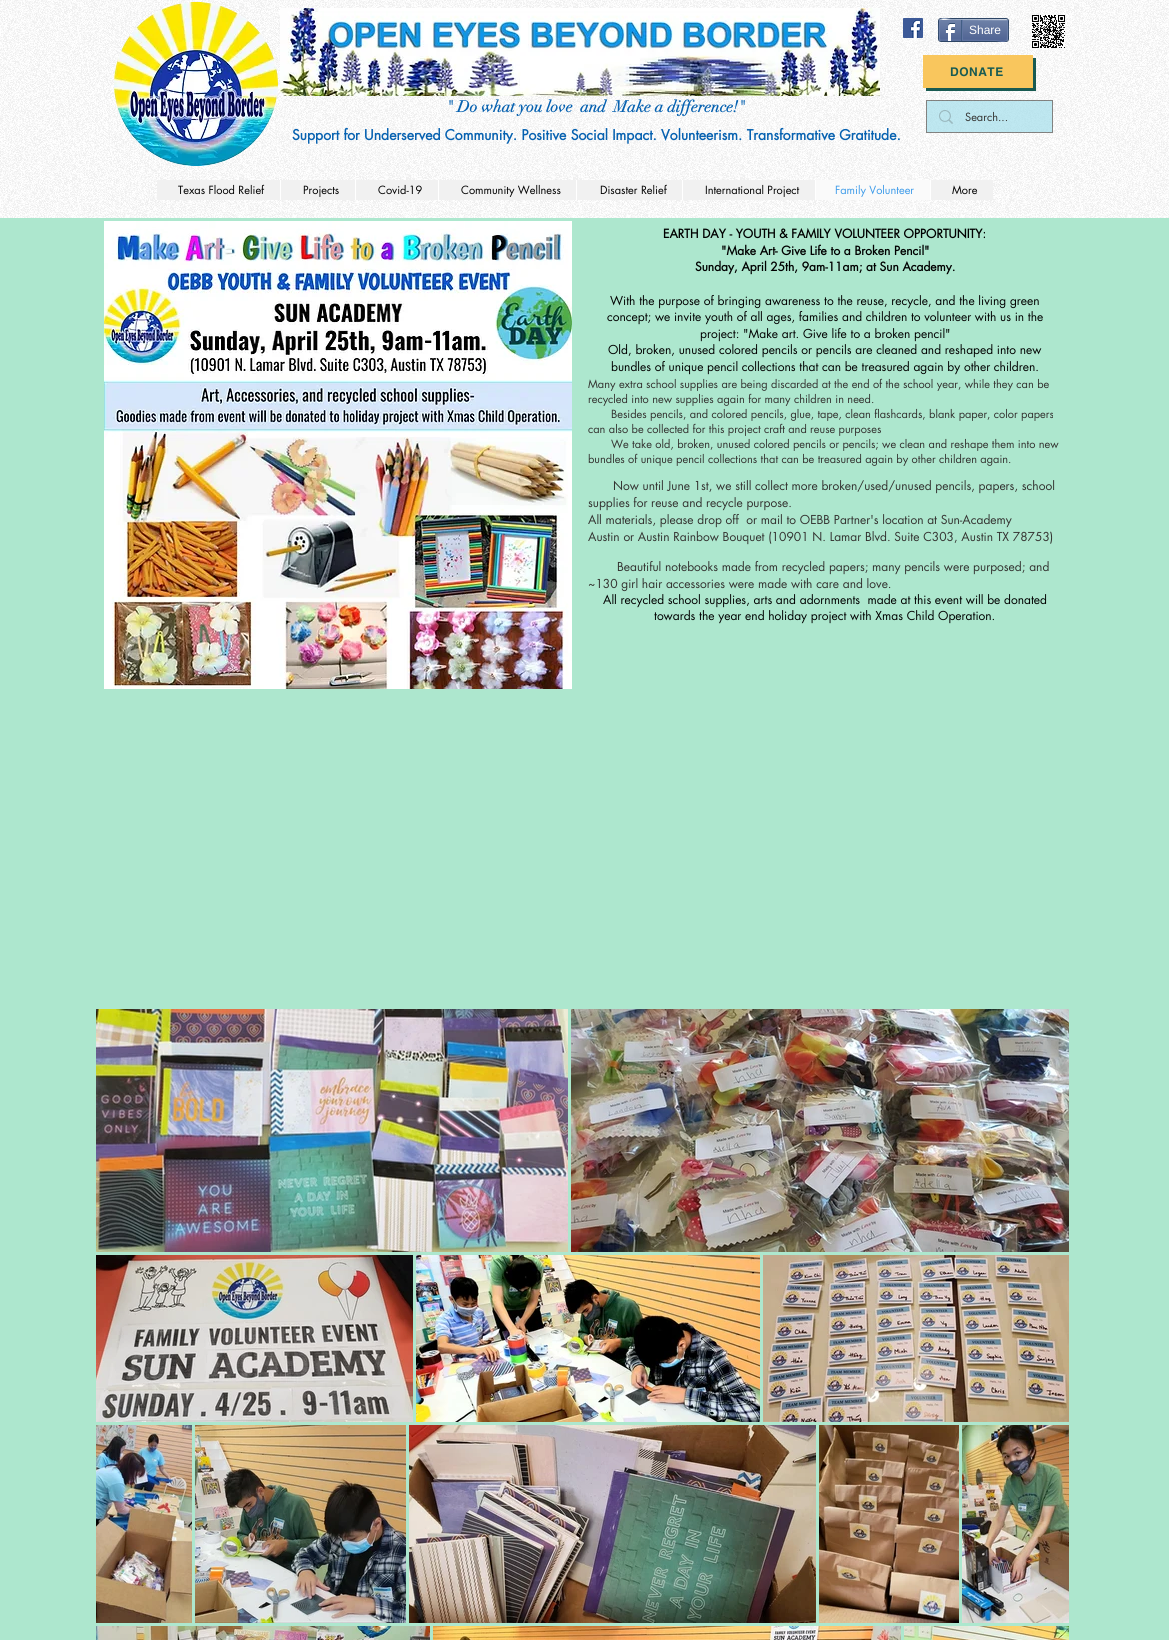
import math
import cairo

surface = cairo.ImageSurface(cairo.FORMAT_RGB24, 1169, 1640)
ctx = cairo.Context(surface)
options = cairo.FontOptions()
options.set_hint_metrics(cairo.HINT_METRICS_OFF)
options.set_hint_style(cairo.HINT_STYLE_NONE)
ctx.set_font_options(options)
ctx.set_miter_limit(4)


def spaced_text(x, y, s, letter, word):
    ctx.move_to(x, y)
    for ch in s:
        ctx.show_text(ch)
        ctx.rel_move_to(letter + word * (ch == ' '), 0)


def round_rect(x, y, w, h, r):
    ctx.new_sub_path()
    for i, (u, v) in enumerate([(x + w - r, y + h - r), (x + r, y + h - r), (x + r, y + r), (x + w - r, y + r)]):
        ctx.arc(u, v, r, i * math.pi / 2, (i + 1) * math.pi / 2)
    ctx.close_path()


def picture(path, x, y, w, h):
    ctx.save()
    ctx.set_source_surface(cairo.ImageSurface.create_from_png(path), x, y)
    ctx.rectangle(x, y, w, h)
    ctx.fill()
    ctx.restore()


ctx.set_source_rgb(0.678, 0.906, 0.808)
ctx.paint()
ctx.set_source_rgb(1, 1, 1)
ctx.rectangle(0, 0, 1169, 218)
ctx.fill()
picture("img1.png", 0, 0, 1169, 218)
picture("img2.png", 114, 2, 164, 164)
picture("img3.png", 280, 8, 600, 88)
picture("img4.png", 903, 18, 20, 20)
round_rect(938.5, 18.5, 70, 23, 2.5)
ctx.set_source_rgb(0.176, 0.271, 0.396)
ctx.set_line_width(1)
ctx.stroke()
picture("img5.png", 939, 20, 69, 21)
ctx.new_path()
ctx.move_to(940, 20)
ctx.curve_to(943, 17, 948, 19.5, 952, 19.5)
ctx.line_to(1007, 20)
ctx.set_source_rgb(0.604, 0.671, 0.776)
ctx.stroke()
ctx.new_path()
ctx.move_to(1007, 20)
ctx.curve_to(1008, 20.5, 1008, 39.5, 1007, 40)
ctx.set_source_rgb(0.435, 0.514, 0.678)
ctx.stroke()
ctx.new_path()
ctx.move_to(1007, 40)
ctx.curve_to(1004, 43, 999, 40.5, 995, 40.5)
ctx.line_to(940, 40)
ctx.set_source_rgb(0.38, 0.463, 0.639)
ctx.stroke()
ctx.new_path()
ctx.move_to(940, 40)
ctx.curve_to(939, 39.5, 939, 20.5, 940, 20)
ctx.set_source_rgb(0.435, 0.514, 0.678)
ctx.stroke()
picture("img6.png", 945, 23, 10, 18)
ctx.set_source_rgb(0.259, 0.369, 0.522)
ctx.rectangle(961, 20, 1, 21)
ctx.fill()
ctx.select_font_face("Liberation Sans")
ctx.set_font_size(12)
ctx.set_source_rgb(1, 1, 1)
ctx.move_to(969, 34)
ctx.show_text("Share")
ctx.set_source_rgb(0.38, 0.463, 0.639)
ctx.rectangle(962, 20, 1, 20)
ctx.fill()
picture("img7.png", 1032, 15, 33, 33)
ctx.set_source_rgb(0.098, 0.357, 0.322)
ctx.new_path()
ctx.move_to(926, 88)
ctx.line_to(926, 91)
ctx.line_to(1036, 91)
ctx.line_to(1036, 58)
ctx.line_to(1033, 58)
ctx.line_to(1033, 88)
ctx.close_path()
ctx.fill()
ctx.set_source_rgb(0.976, 0.776, 0.365)
ctx.rectangle(923, 55, 110, 33)
ctx.fill()
ctx.select_font_face("helvetica", cairo.FONT_SLANT_NORMAL, cairo.FONT_WEIGHT_BOLD)
ctx.set_source_rgb(0.098, 0.357, 0.322)
spaced_text(950, 76, "DONATE", 0.5, 0)
ctx.select_font_face("didot", cairo.FONT_SLANT_NORMAL, cairo.FONT_WEIGHT_BOLD)
ctx.set_font_size(16)
ctx.set_source_rgb(0.027, 0.38, 0.69)
ctx.move_to(446, 112)
ctx.show_text("\" Do what you love  and  Make a difference!\"")
ctx.select_font_face("futura", cairo.FONT_SLANT_NORMAL, cairo.FONT_WEIGHT_BOLD)
ctx.set_font_size(14)
ctx.move_to(292, 140)
ctx.show_text("Support for Underserved Community. Positive Social Impact. Volunteerism. Transformative Gratitude.")
ctx.rectangle(926.5, 100.5, 126, 32)
ctx.set_source_rgba(0.2, 0.196, 0.188, 0.6)
ctx.stroke()
ctx.set_source_rgba(0.647, 0.871, 0.925, 0.7)
ctx.rectangle(927, 101, 125, 31)
ctx.fill()
picture("img8.png", 939, 110, 14, 14)
ctx.select_font_face("futura")
ctx.set_font_size(11)
ctx.set_source_rgb(0.2, 0.196, 0.188)
ctx.move_to(965, 121)
ctx.show_text("Search...")
ctx.set_source_rgb(0.945, 0.945, 0.945)
ctx.rectangle(157, 180, 836, 20)
ctx.fill()
ctx.set_source_rgb(0, 0, 0)
ctx.move_to(178, 194)
ctx.show_text("Texas Flood Relief")
ctx.set_source_rgb(1, 1, 1)
ctx.rectangle(280, 180, 1, 20)
ctx.fill()
ctx.set_source_rgb(0, 0, 0)
ctx.move_to(303, 194)
ctx.show_text("Projects")
ctx.set_source_rgb(1, 1, 1)
ctx.rectangle(355, 180, 1, 20)
ctx.fill()
ctx.set_source_rgb(0, 0, 0)
ctx.move_to(378, 194)
ctx.show_text("Covid-19")
ctx.set_source_rgb(1, 1, 1)
ctx.rectangle(438, 180, 1, 20)
ctx.fill()
ctx.set_source_rgb(0, 0, 0)
ctx.move_to(461, 194)
ctx.show_text("Community Wellness")
ctx.set_source_rgb(1, 1, 1)
ctx.rectangle(576, 180, 1, 20)
ctx.fill()
ctx.set_source_rgb(0, 0, 0)
ctx.move_to(600, 194)
ctx.show_text("Disaster Relief")
ctx.set_source_rgb(1, 1, 1)
ctx.rectangle(682, 180, 1, 20)
ctx.fill()
ctx.set_source_rgb(0, 0, 0)
ctx.move_to(705, 194)
ctx.show_text("International Project")
ctx.set_source_rgb(0.98, 0.98, 0.98)
ctx.rectangle(816, 180, 114, 20)
ctx.fill()
ctx.set_source_rgb(1, 1, 1)
ctx.rectangle(815, 180, 1, 20)
ctx.fill()
ctx.set_source_rgb(0.239, 0.608, 0.914)
ctx.move_to(835, 194)
ctx.show_text("Family Volunteer")
ctx.set_source_rgb(1, 1, 1)
ctx.rectangle(930, 180, 1, 20)
ctx.fill()
ctx.set_source_rgb(0, 0, 0)
ctx.move_to(952, 194)
ctx.show_text("More")
picture("img9.png", 104, 221, 468, 468)
ctx.select_font_face("futura", cairo.FONT_SLANT_NORMAL, cairo.FONT_WEIGHT_BOLD)
ctx.set_font_size(12)
ctx.move_to(663, 238)
ctx.show_text("EARTH DAY - YOUTH & FAMILY VOLUNTEER OPPORTUNITY:")
ctx.move_to(721, 255)
ctx.show_text("\"Make Art- Give Life to a Broken Pencil\"")
ctx.move_to(695, 271)
ctx.show_text("Sunday, April 25th, 9am-11am; at Sun Academy.")
ctx.select_font_face("futura")
ctx.move_to(610, 305)
ctx.show_text("With the purpose of bringing awareness to the reuse, recycle, and the living green")
ctx.move_to(607, 321)
ctx.show_text("concept; we invite youth of all ages, families and children to volunteer with us in the")
ctx.move_to(700, 338)
ctx.show_text("project: \"Make art. Give life to a broken pencil\"")
ctx.move_to(608, 354)
ctx.show_text("Old, broken, unused colored pencils or pencils are cleaned and reshaped into new")
ctx.move_to(611, 371)
ctx.show_text("bundles of unique pencil collections that can be treasured again by other children.")
ctx.set_font_size(11)
ctx.set_source_rgb(0.2, 0.196, 0.188)
ctx.move_to(588, 388)
ctx.show_text("Many extra school supplies are being discarded at the end of the school year, while they can be")
ctx.move_to(588, 403)
ctx.show_text("recycled into new supplies again for many children in need.")
ctx.move_to(611, 418)
ctx.show_text("Besides pencils, and colored pencils, glue, tape, clean flashcards, blank paper, color papers")
ctx.move_to(588, 433)
ctx.show_text("can also be collected for this project craft and reuse purposes")
ctx.move_to(611, 448)
ctx.show_text("We take old, broken, unused colored pencils or pencils; we clean and reshape them into new")
ctx.move_to(588, 463)
ctx.show_text("bundles of unique pencil collections that can be treasured again by other children again.")
ctx.set_font_size(12)
ctx.move_to(613, 490)
ctx.show_text("Now until June 1st, we still collect more broken/used/unused pencils, papers, school")
ctx.move_to(588, 507)
ctx.show_text("supplies for reuse and recycle purpose.")
ctx.move_to(588, 524)
ctx.show_text("All materials, please drop off  or mail to OEBB Partner's location at Sun-Academy")
ctx.move_to(588, 541)
ctx.show_text("Austin or Austin Rainbow Bouquet (10901 N. Lamar Blvd. Suite C303, Austin TX 78753)")
ctx.move_to(617, 571)
ctx.show_text("Beautiful notebooks made from recycled papers; many pencils were purposed; and")
ctx.move_to(588, 588)
ctx.show_text("~130 girl hair accessories were made with care and love.")
ctx.set_source_rgb(0, 0, 0)
ctx.move_to(603, 604)
ctx.show_text("All recycled school supplies, arts and adornments  made at this event will be donated")
ctx.move_to(654, 620)
ctx.show_text("towards the year end holiday project with Xmas Child Operation.")
picture("img10.png", 96, 1009, 472, 243)
picture("img11.png", 571, 1009, 498, 243)
picture("img12.png", 96, 1255, 317, 167)
picture("img13.png", 416, 1255, 344, 167)
picture("img14.png", 763, 1255, 306, 167)
picture("img15.png", 96, 1425, 96, 198)
picture("img16.png", 195, 1425, 211, 198)
picture("img17.png", 409, 1425, 407, 198)
picture("img18.png", 819, 1425, 140, 198)
picture("img19.png", 962, 1425, 107, 198)
picture("img20.png", 96, 1626, 334, 14)
picture("img21.png", 433, 1626, 468, 14)
picture("img22.png", 904, 1626, 165, 14)
surface.write_to_png("page.png")
